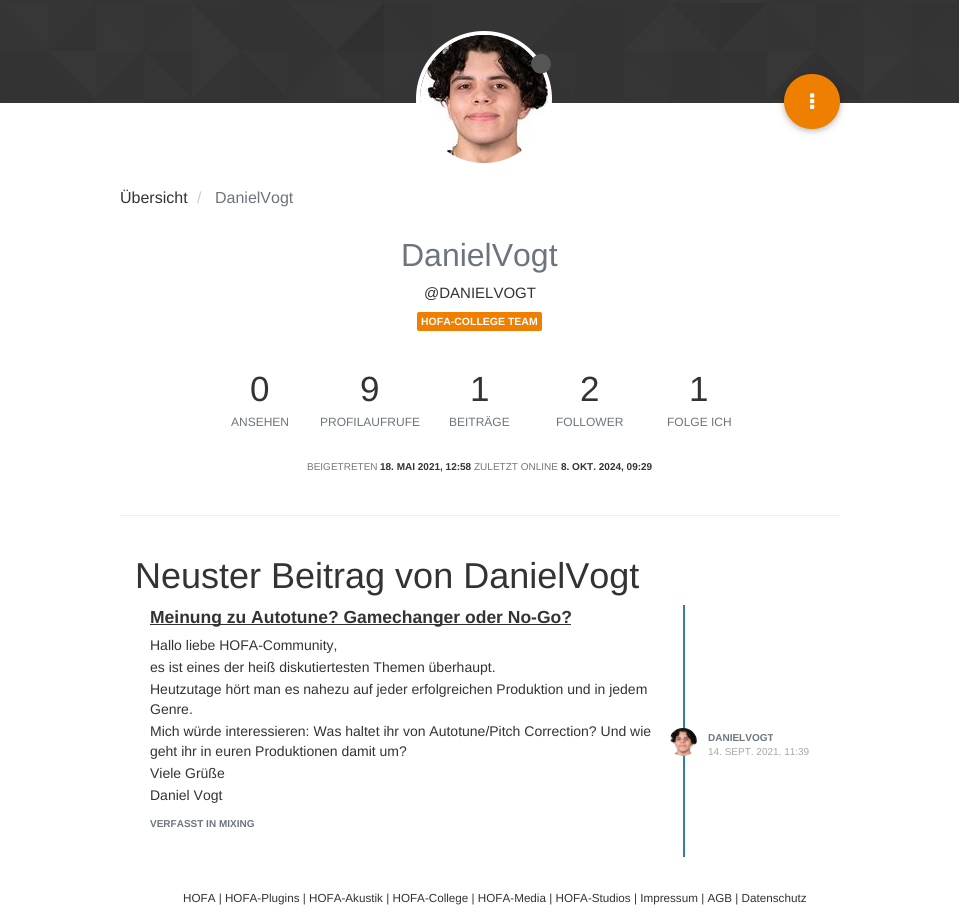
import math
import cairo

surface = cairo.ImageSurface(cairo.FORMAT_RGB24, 959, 923)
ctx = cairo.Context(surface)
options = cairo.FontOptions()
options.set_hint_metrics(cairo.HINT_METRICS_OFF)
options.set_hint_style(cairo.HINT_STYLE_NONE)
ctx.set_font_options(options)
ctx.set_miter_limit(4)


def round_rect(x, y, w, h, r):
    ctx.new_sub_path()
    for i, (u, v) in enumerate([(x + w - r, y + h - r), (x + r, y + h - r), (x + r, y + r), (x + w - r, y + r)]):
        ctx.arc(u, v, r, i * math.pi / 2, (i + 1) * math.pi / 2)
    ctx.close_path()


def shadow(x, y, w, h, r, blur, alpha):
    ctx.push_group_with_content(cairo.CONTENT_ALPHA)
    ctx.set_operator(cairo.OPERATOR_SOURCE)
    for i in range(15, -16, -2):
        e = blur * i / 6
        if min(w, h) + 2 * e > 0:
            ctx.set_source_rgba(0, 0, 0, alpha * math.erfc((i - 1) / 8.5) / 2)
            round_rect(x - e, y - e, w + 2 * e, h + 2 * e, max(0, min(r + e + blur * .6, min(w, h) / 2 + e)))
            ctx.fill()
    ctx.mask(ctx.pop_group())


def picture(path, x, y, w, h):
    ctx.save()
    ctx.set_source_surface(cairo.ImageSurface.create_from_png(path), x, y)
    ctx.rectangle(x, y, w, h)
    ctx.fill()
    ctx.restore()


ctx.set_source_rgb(1, 1, 1)
ctx.paint()
picture("img1.png", 0, 0, 959, 103)
ctx.arc(484, 99, 66, 0, 2 * math.pi)
ctx.set_source_rgb(1, 1, 1)
ctx.set_line_width(4)
ctx.stroke()
picture("img2.png", 420, 35, 128, 128)
ctx.set_source_rgb(0.333, 0.333, 0.333)
ctx.new_path()
ctx.move_to(549.5, 59)
ctx.curve_to(556, 70, 539, 80, 532.5, 68.5)
ctx.curve_to(526, 57.5, 543, 47.5, 549.5, 59)
ctx.close_path()
ctx.fill()
ctx.set_source_rgb(0, 0, 0)
shadow(784, 76, 56, 55, 27.5, 5, 0.12)
shadow(784, 76, 56, 55, 27.5, 2.5, 0.16)
ctx.set_source_rgb(0.933, 0.498, 0)
round_rect(784, 74, 56, 55, 27.5)
ctx.fill()
picture("img3.png", 810, 93, 5, 16)
ctx.select_font_face("Liberation Sans")
ctx.set_font_size(16)
ctx.set_source_rgb(0.2, 0.2, 0.2)
ctx.move_to(120, 203)
ctx.show_text("Übersicht")
ctx.set_source_rgb(0.8, 0.8, 0.8)
ctx.move_to(197, 203)
ctx.show_text("/")
ctx.set_source_rgb(0.424, 0.459, 0.49)
ctx.move_to(215, 203)
ctx.show_text("DanielVogt")
ctx.set_font_size(32)
ctx.move_to(401, 266)
ctx.show_text("DanielVogt")
ctx.set_font_size(15)
ctx.set_source_rgb(0.2, 0.2, 0.2)
ctx.move_to(424, 298)
ctx.show_text("@DANIELVOGT")
ctx.set_source_rgb(0.933, 0.498, 0)
round_rect(417, 312, 125, 19, 2)
ctx.fill()
ctx.select_font_face("Liberation Sans", cairo.FONT_SLANT_NORMAL, cairo.FONT_WEIGHT_BOLD)
ctx.set_font_size(10.5)
ctx.set_source_rgb(1, 1, 1)
ctx.move_to(421, 325)
ctx.show_text("HOFA-COLLEGE TEAM")
ctx.select_font_face("Liberation Sans")
ctx.set_font_size(35)
ctx.set_source_rgb(0.2, 0.2, 0.2)
ctx.move_to(250, 401)
ctx.show_text("0")
ctx.set_font_size(12)
ctx.set_source_rgb(0.424, 0.459, 0.49)
ctx.move_to(231, 426)
ctx.show_text("ANSEHEN")
ctx.set_font_size(35)
ctx.set_source_rgb(0.2, 0.2, 0.2)
ctx.move_to(360, 401)
ctx.show_text("9")
ctx.set_font_size(12)
ctx.set_source_rgb(0.424, 0.459, 0.49)
ctx.move_to(320, 426)
ctx.show_text("PROFILAUFRUFE")
ctx.set_font_size(35)
ctx.set_source_rgb(0.2, 0.2, 0.2)
ctx.move_to(470, 401)
ctx.show_text("1")
ctx.set_font_size(12)
ctx.set_source_rgb(0.424, 0.459, 0.49)
ctx.move_to(449, 426)
ctx.show_text("BEITRÄGE")
ctx.set_font_size(35)
ctx.set_source_rgb(0.2, 0.2, 0.2)
ctx.move_to(580, 401)
ctx.show_text("2")
ctx.set_font_size(12)
ctx.set_source_rgb(0.424, 0.459, 0.49)
ctx.move_to(556, 426)
ctx.show_text("FOLLOWER")
ctx.set_font_size(35)
ctx.set_source_rgb(0.2, 0.2, 0.2)
ctx.move_to(689, 401)
ctx.show_text("1")
ctx.set_font_size(12)
ctx.set_source_rgb(0.424, 0.459, 0.49)
ctx.move_to(667, 426)
ctx.show_text("FOLGE ICH")
ctx.set_font_size(10)
ctx.set_source_rgb(0.467, 0.467, 0.467)
ctx.move_to(307, 470)
ctx.show_text("BEIGETRETEN")
ctx.select_font_face("Liberation Sans", cairo.FONT_SLANT_NORMAL, cairo.FONT_WEIGHT_BOLD)
ctx.set_source_rgb(0.2, 0.2, 0.2)
ctx.move_to(380, 470)
ctx.show_text("18. MAI 2021, 12:58")
ctx.select_font_face("Liberation Sans")
ctx.set_source_rgb(0.467, 0.467, 0.467)
ctx.move_to(474, 470)
ctx.show_text("ZULETZT ONLINE")
ctx.select_font_face("Liberation Sans", cairo.FONT_SLANT_NORMAL, cairo.FONT_WEIGHT_BOLD)
ctx.set_source_rgb(0.2, 0.2, 0.2)
ctx.move_to(561, 470)
ctx.show_text("8. OKT. 2024, 09:29")
ctx.set_source_rgb(0.933, 0.933, 0.933)
ctx.rectangle(120, 515, 720, 1)
ctx.fill()
ctx.select_font_face("Liberation Sans")
ctx.set_font_size(36)
ctx.set_source_rgb(0.2, 0.2, 0.2)
ctx.move_to(135, 588)
ctx.show_text("Neuster Beitrag von DanielVogt")
ctx.set_source_rgb(0.2, 0.478, 0.718)
ctx.rectangle(683, 605, 2, 252)
ctx.fill()
ctx.set_source_rgb(0.2, 0.2, 0.2)
ctx.rectangle(150, 624, 421, 1)
ctx.fill()
ctx.select_font_face("Liberation Sans", cairo.FONT_SLANT_NORMAL, cairo.FONT_WEIGHT_BOLD)
ctx.set_font_size(17.5)
ctx.move_to(150, 623)
ctx.show_text("Meinung zu Autotune? Gamechanger oder No-Go?")
ctx.select_font_face("Liberation Sans")
ctx.set_font_size(14)
ctx.move_to(150, 650)
ctx.show_text("Hallo liebe HOFA-Community,")
ctx.move_to(150, 672)
ctx.show_text("es ist eines der heiß diskutiertesten Themen überhaupt.")
ctx.move_to(150, 694)
ctx.show_text("Heutzutage hört man es nahezu auf jeder erfolgreichen Produktion und in jedem")
ctx.move_to(150, 714)
ctx.show_text("Genre.")
ctx.move_to(150, 736)
ctx.show_text("Mich würde interessieren: Was haltet ihr von Autotune/Pitch Correction? Und wie")
ctx.move_to(150, 756)
ctx.show_text("geht ihr in euren Produktionen damit um?")
ctx.move_to(150, 778)
ctx.show_text("Viele Grüße")
ctx.move_to(150, 800)
ctx.show_text("Daniel Vogt")
picture("img4.png", 670, 728, 27, 28)
ctx.select_font_face("Liberation Sans", cairo.FONT_SLANT_NORMAL, cairo.FONT_WEIGHT_BOLD)
ctx.set_font_size(10)
ctx.set_source_rgb(0.424, 0.459, 0.49)
ctx.move_to(708, 741)
ctx.show_text("DANIELVOGT")
ctx.select_font_face("Liberation Sans")
ctx.set_source_rgb(0.651, 0.651, 0.651)
ctx.move_to(708, 755)
ctx.show_text("14. SEPT. 2021, 11:39")
ctx.select_font_face("Liberation Sans", cairo.FONT_SLANT_NORMAL, cairo.FONT_WEIGHT_BOLD)
ctx.set_source_rgb(0.424, 0.459, 0.49)
ctx.move_to(150, 827)
ctx.show_text("VERFASST IN MIXING")
ctx.select_font_face("Liberation Sans")
ctx.set_font_size(11.67)
ctx.set_source_rgb(0.2, 0.2, 0.2)
ctx.move_to(183, 902)
ctx.show_text("HOFA | HOFA-Plugins | HOFA-Akustik | HOFA-College | HOFA-Media | HOFA-Studios | Impressum | AGB | Datenschutz")
surface.write_to_png("page.png")
